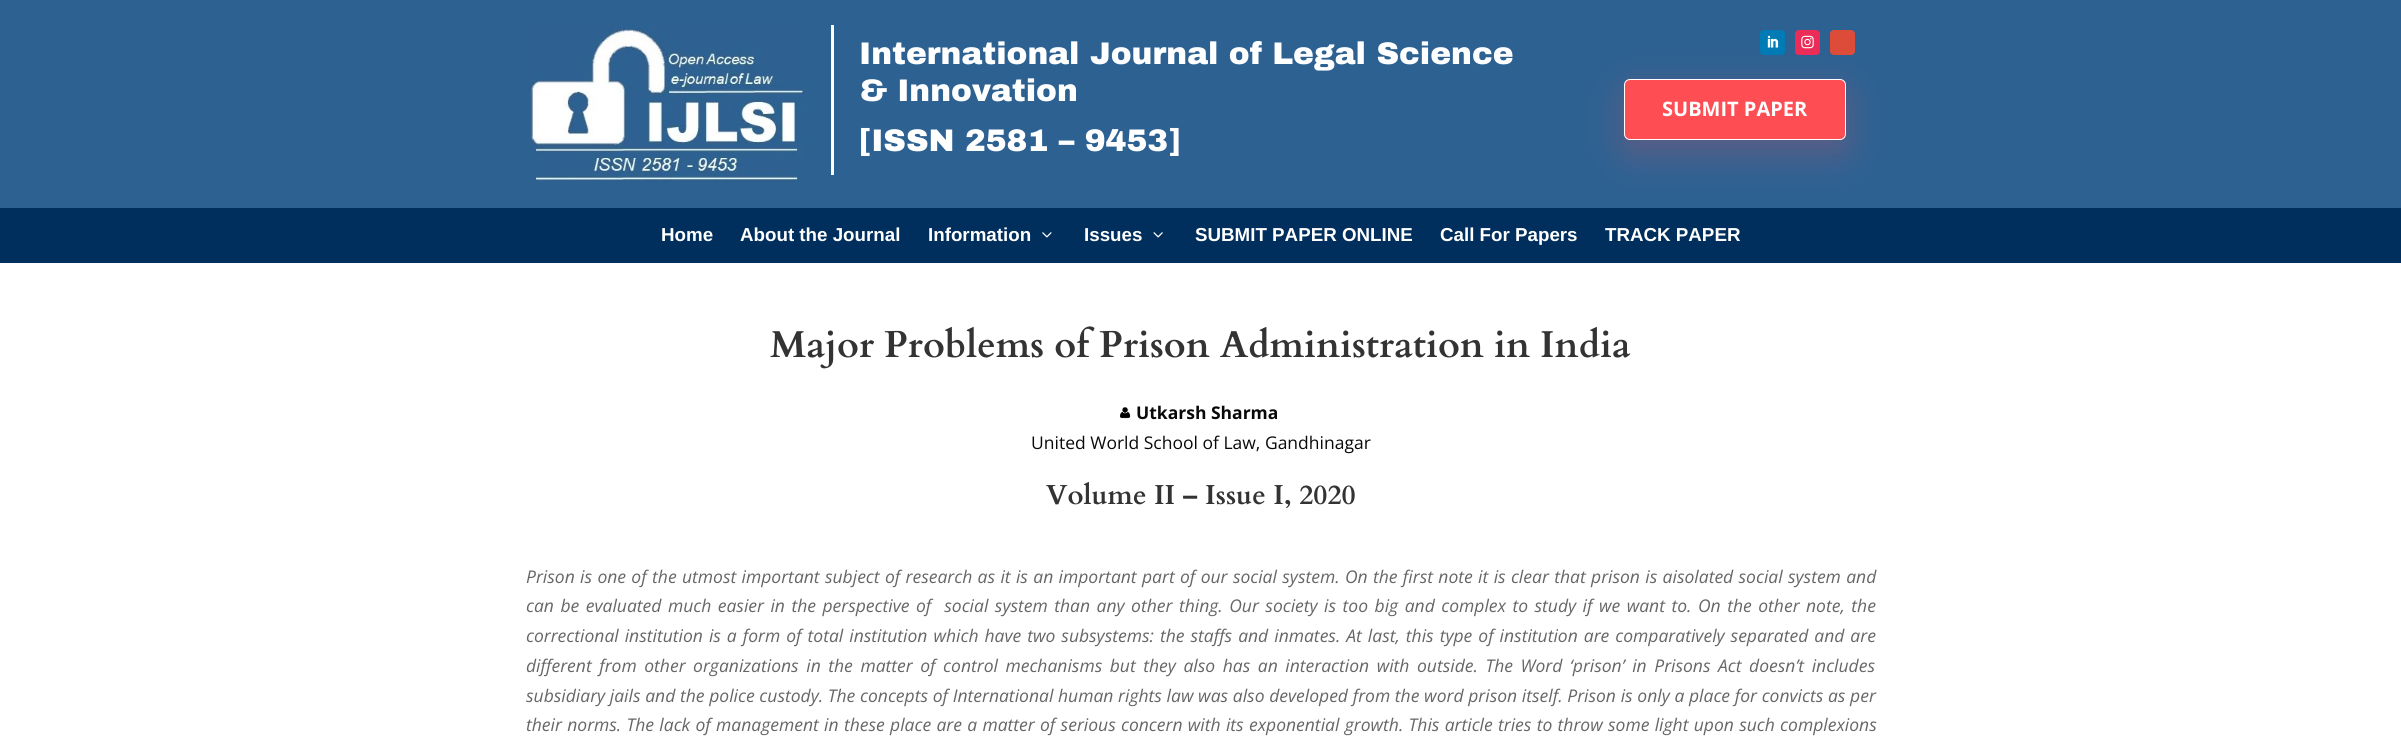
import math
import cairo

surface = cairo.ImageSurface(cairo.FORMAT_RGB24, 2401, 749)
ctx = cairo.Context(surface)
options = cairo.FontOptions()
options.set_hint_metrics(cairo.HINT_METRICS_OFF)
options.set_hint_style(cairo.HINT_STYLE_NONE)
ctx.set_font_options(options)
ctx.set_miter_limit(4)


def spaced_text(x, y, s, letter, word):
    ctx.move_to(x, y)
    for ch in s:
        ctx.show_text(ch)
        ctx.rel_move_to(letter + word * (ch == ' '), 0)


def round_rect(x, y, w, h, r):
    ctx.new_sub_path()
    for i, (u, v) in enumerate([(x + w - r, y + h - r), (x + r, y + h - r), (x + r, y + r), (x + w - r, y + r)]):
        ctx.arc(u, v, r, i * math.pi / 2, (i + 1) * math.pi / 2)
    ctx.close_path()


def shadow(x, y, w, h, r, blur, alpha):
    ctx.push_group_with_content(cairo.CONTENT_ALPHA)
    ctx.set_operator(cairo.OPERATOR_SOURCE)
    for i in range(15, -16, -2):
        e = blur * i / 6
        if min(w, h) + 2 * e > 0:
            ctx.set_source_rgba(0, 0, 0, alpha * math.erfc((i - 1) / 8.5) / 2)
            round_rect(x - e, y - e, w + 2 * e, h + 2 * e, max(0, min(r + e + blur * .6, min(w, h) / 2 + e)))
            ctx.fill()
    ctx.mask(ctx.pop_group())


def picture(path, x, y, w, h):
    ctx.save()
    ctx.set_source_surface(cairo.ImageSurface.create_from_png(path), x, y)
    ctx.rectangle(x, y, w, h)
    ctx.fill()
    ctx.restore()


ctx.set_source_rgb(1, 1, 1)
ctx.paint()
ctx.set_source_rgb(0.176, 0.38, 0.573)
ctx.rectangle(0, 0, 2401, 208)
ctx.fill()
picture("img1.png", 526, 25, 279, 157)
ctx.set_source_rgb(1, 1, 1)
ctx.rectangle(831, 25, 3, 150)
ctx.fill()
ctx.select_font_face("Archivo Black Black")
ctx.set_font_size(31.25)
ctx.move_to(859, 64)
ctx.show_text("International Journal of Legal Science")
ctx.move_to(859, 101)
ctx.show_text("& Innovation")
ctx.move_to(859, 151)
ctx.show_text("[ISSN 2581 – 9453]")
ctx.set_source_rgb(0, 0.482, 0.714)
round_rect(1760, 30, 25, 25, 4)
ctx.fill()
ctx.set_source_rgb(0.918, 0.173, 0.349)
round_rect(1795, 30, 25, 25, 4)
ctx.fill()
ctx.set_source_rgb(0.867, 0.294, 0.224)
round_rect(1830, 30, 25, 25, 4)
ctx.fill()
ctx.set_source_rgb(0, 0.184, 0.365)
ctx.rectangle(0, 208, 2401, 55)
ctx.fill()
ctx.set_source_rgb(1, 0.302, 0.329)
shadow(1624, 91, 222, 62, 6, 19, 0.24)
picture("img2.png", 1767, 35, 12, 13)
picture("img3.png", 1801, 35, 13, 14)
ctx.set_source_rgb(1, 0.302, 0.329)
round_rect(1624.5, 79.5, 221, 60, 5.5)
ctx.fill_preserve()
ctx.set_source_rgb(1, 1, 1)
ctx.set_line_width(1)
ctx.stroke()
ctx.select_font_face("Open Sans", cairo.FONT_SLANT_NORMAL, cairo.FONT_WEIGHT_BOLD)
ctx.set_font_size(20)
ctx.move_to(1662, 116)
ctx.show_text("SUBMIT PAPER")
ctx.select_font_face("Liberation Sans", cairo.FONT_SLANT_NORMAL, cairo.FONT_WEIGHT_BOLD)
ctx.set_font_size(18.75)
ctx.move_to(661, 241)
ctx.show_text("Home")
ctx.move_to(740, 241)
ctx.show_text("About the Journal")
ctx.move_to(928, 241)
ctx.show_text("Information")
picture("img4.png", 1042, 232, 10, 6)
ctx.move_to(1084, 241)
ctx.show_text("Issues")
picture("img5.png", 1153, 232, 10, 6)
ctx.move_to(1195, 241)
ctx.show_text("SUBMIT PAPER ONLINE")
ctx.move_to(1440, 241)
ctx.show_text("Call For Papers")
ctx.move_to(1605, 241)
ctx.show_text("TRACK PAPER")
ctx.select_font_face("Cardo", cairo.FONT_SLANT_NORMAL, cairo.FONT_WEIGHT_BOLD)
ctx.set_font_size(37.5)
ctx.set_source_rgb(0.2, 0.2, 0.2)
ctx.move_to(770, 357)
ctx.show_text("Major Problems of Prison Administration in India")
picture("img6.png", 1119, 407, 12, 12)
ctx.select_font_face("Open Sans", cairo.FONT_SLANT_NORMAL, cairo.FONT_WEIGHT_BOLD)
ctx.set_font_size(17.5)
ctx.set_source_rgb(0.039, 0.039, 0.039)
ctx.move_to(1136, 419)
ctx.show_text("Utkarsh Sharma")
ctx.select_font_face("Open Sans")
ctx.move_to(1031, 449)
ctx.show_text("United World School of Law, Gandhinagar")
ctx.select_font_face("Cardo", cairo.FONT_SLANT_NORMAL, cairo.FONT_WEIGHT_BOLD)
ctx.set_font_size(27.5)
ctx.set_source_rgb(0.2, 0.2, 0.2)
ctx.move_to(1046, 504)
ctx.show_text("Volume II – Issue I, 2020")
ctx.select_font_face("Open Sans", cairo.FONT_SLANT_ITALIC)
ctx.set_font_size(17.5)
ctx.set_source_rgb(0.4, 0.4, 0.4)
spaced_text(526, 583, "Prison is one of the utmost important subject of research as it is an important part of our social system. On the first note it is clear that prison is aisolated social system and", 0, 0.8)
spaced_text(526, 612, "can be evaluated much easier in the perspective of  social system than any other thing. Our society is too big and complex to study if we want to. On the other note, the", 0, 1.95)
spaced_text(526, 642, "correctional institution is a form of total institution which have two subsystems: the staffs and inmates. At last, this type of institution are comparatively separated and are", 0, 1.45)
spaced_text(526, 672, "different from other organizations in the matter of control mechanisms but they also has an interaction with outside. The Word ‘prison’ in Prisons Act doesn’t includes", 0, 3)
spaced_text(526, 702, "subsidiary jails and the police custody. The concepts of International human rights law was also developed from the word prison itself. Prison is only a place for convicts as per", 0, 0.15)
spaced_text(526, 731, "their norms. The lack of management in these place are a matter of serious concern with its exponential growth. This article tries to throw some light upon such complexions", 0, 0.75)
surface.write_to_png("page.png")
